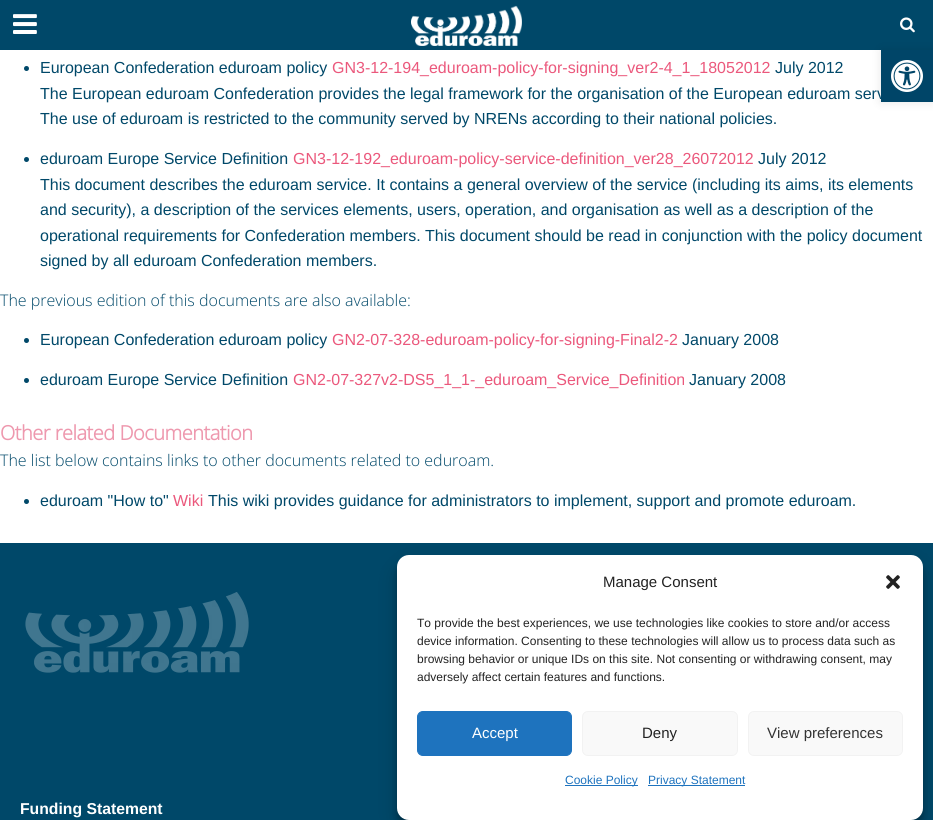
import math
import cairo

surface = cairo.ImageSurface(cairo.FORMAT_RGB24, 933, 820)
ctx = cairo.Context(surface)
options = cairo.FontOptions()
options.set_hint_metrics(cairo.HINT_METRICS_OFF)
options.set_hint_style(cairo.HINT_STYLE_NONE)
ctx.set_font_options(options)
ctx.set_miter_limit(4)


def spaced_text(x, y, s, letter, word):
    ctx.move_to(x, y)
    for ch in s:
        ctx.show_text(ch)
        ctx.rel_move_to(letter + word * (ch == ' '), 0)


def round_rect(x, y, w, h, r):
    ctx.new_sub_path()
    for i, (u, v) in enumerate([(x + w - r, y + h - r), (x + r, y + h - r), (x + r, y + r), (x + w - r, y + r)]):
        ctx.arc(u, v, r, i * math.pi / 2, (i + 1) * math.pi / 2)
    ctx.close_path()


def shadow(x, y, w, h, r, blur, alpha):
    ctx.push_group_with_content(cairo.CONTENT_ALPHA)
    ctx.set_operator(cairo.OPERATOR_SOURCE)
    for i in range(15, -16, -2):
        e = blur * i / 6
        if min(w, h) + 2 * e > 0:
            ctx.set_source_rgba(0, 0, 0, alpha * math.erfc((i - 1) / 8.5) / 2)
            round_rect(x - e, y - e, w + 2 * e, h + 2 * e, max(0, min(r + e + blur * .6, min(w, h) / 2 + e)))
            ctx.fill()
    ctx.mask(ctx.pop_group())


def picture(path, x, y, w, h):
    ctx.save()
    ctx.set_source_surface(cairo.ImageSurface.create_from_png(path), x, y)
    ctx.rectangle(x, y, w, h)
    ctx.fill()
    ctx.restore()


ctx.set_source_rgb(1, 1, 1)
ctx.paint()
ctx.set_source_rgb(0, 0.282, 0.412)
ctx.rectangle(0, 0, 933, 50)
ctx.fill()
picture("img1.png", 13, 14, 24, 20)
picture("img2.png", 411, 5, 111, 41)
picture("img3.png", 900, 17, 15, 16)
ctx.set_source_rgb(0, 0, 0)
shadow(881, 50, 52, 52, 0, 5, 0.1)
ctx.select_font_face("Liberation Sans")
ctx.set_font_size(16)
ctx.set_source_rgb(0, 0.282, 0.412)
ctx.move_to(40, 99)
ctx.show_text("The European eduroam Confederation provides the legal framework for the organisation of the European eduroam serv")
ctx.set_source_rgb(0, 0.271, 0.408)
ctx.rectangle(881, 50, 52, 52)
ctx.fill()
picture("img4.png", 891, 60, 32, 32)
ctx.set_source_rgb(0, 0.282, 0.412)
ctx.arc(26.5, 68.5, 2.5, 0, 2 * math.pi)
ctx.fill()
ctx.move_to(40, 73)
ctx.show_text("European Confederation eduroam policy")
ctx.set_source_rgb(0.918, 0.345, 0.486)
ctx.move_to(332, 73)
ctx.show_text("GN3-12-194_eduroam-policy-for-signing_ver2-4_1_18052012")
ctx.set_source_rgb(0, 0.282, 0.412)
ctx.move_to(775, 73)
ctx.show_text("July 2012")
ctx.move_to(40, 124)
ctx.show_text("The use of eduroam is restricted to the community served by NRENs according to their national policies.")
ctx.new_path()
ctx.arc(26.5, 159.5, 2.5, 0, 2 * math.pi)
ctx.fill()
ctx.move_to(40, 164)
ctx.show_text("eduroam Europe Service Definition")
ctx.set_source_rgb(0.918, 0.345, 0.486)
ctx.move_to(293, 164)
ctx.show_text("GN3-12-192_eduroam-policy-service-definition_ver28_26072012")
ctx.set_source_rgb(0, 0.282, 0.412)
ctx.move_to(758, 164)
ctx.show_text("July 2012")
ctx.move_to(40, 190)
ctx.show_text("This document describes the eduroam service. It contains a general overview of the service (including its aims, its elements")
ctx.move_to(40, 215)
ctx.show_text("and security), a description of the services elements, users, operation, and organisation as well as a description of the")
ctx.move_to(40, 241)
ctx.show_text("operational requirements for Confederation members. This document should be read in conjunction with the policy document")
ctx.move_to(40, 266)
ctx.show_text("signed by all eduroam Confederation members.")
ctx.select_font_face("Open Sans Light")
ctx.move_to(0, 306)
ctx.show_text("The previous edition of this documents are also available:")
ctx.new_path()
ctx.arc(26.5, 340.5, 2.5, 0, 2 * math.pi)
ctx.fill()
ctx.select_font_face("Liberation Sans")
ctx.move_to(40, 345)
ctx.show_text("European Confederation eduroam policy")
ctx.set_source_rgb(0.918, 0.345, 0.486)
ctx.move_to(332, 345)
ctx.show_text("GN2-07-328-eduroam-policy-for-signing-Final2-2")
ctx.set_source_rgb(0, 0.282, 0.412)
ctx.move_to(682, 345)
ctx.show_text("January 2008")
ctx.new_path()
ctx.arc(26.5, 380.5, 2.5, 0, 2 * math.pi)
ctx.fill()
ctx.move_to(40, 385)
ctx.show_text("eduroam Europe Service Definition")
ctx.set_source_rgb(0.918, 0.345, 0.486)
ctx.move_to(293, 385)
ctx.show_text("GN2-07-327v2-DS5_1_1-_eduroam_Service_Definition")
ctx.set_source_rgb(0, 0.282, 0.412)
ctx.move_to(689, 385)
ctx.show_text("January 2008")
ctx.select_font_face("Open Sans", cairo.FONT_SLANT_NORMAL, cairo.FONT_WEIGHT_BOLD)
ctx.set_font_size(20)
ctx.set_source_rgb(0.933, 0.596, 0.682)
spaced_text(0, 440, "Other related Documentation", -0.5, 0)
ctx.select_font_face("Open Sans Light")
ctx.set_font_size(16)
ctx.set_source_rgb(0, 0.282, 0.412)
ctx.move_to(0, 466)
ctx.show_text("The list below contains links to other documents related to eduroam.")
ctx.new_path()
ctx.arc(26.5, 501.5, 2.5, 0, 2 * math.pi)
ctx.fill()
ctx.select_font_face("Liberation Sans")
ctx.move_to(40, 506)
ctx.show_text("eduroam \"How to\"")
ctx.set_source_rgb(0.918, 0.345, 0.486)
ctx.move_to(173, 506)
ctx.show_text("Wiki")
ctx.set_source_rgb(0, 0.282, 0.412)
ctx.move_to(208, 506)
ctx.show_text("This wiki provides guidance for administrators to implement, support and promote eduroam.")
ctx.rectangle(0, 543, 933, 277)
ctx.fill()
ctx.set_source_rgb(0, 0, 0)
shadow(397, 561, 526, 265, 12, 3, 0.23)
shadow(397, 565, 526, 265, 12, 10, 0.19)
ctx.set_source_rgb(1, 1, 1)
round_rect(397, 555, 526, 265, 12)
ctx.fill()
ctx.set_font_size(15)
ctx.set_source_rgb(0.133, 0.133, 0.133)
ctx.move_to(603, 587)
ctx.show_text("Manage Consent")
picture("img5.png", 886, 575, 14, 14)
ctx.set_font_size(12)
ctx.move_to(417, 627)
ctx.show_text("To provide the best experiences, we use technologies like cookies to store and/or access")
ctx.move_to(417, 645)
ctx.show_text("device information. Consenting to these technologies will allow us to process data such as")
ctx.move_to(417, 663)
ctx.show_text("browsing behavior or unique IDs on this site. Not consenting or withdrawing consent, may")
ctx.move_to(417, 681)
ctx.show_text("adversely affect certain features and functions.")
ctx.set_source_rgb(0.118, 0.451, 0.745)
round_rect(417.5, 711.5, 154, 44, 5.5)
ctx.fill_preserve()
ctx.set_line_width(1)
ctx.stroke()
ctx.set_font_size(15)
ctx.set_source_rgb(1, 1, 1)
ctx.move_to(472, 738)
ctx.show_text("Accept")
ctx.set_source_rgb(0.976, 0.976, 0.976)
round_rect(582.5, 711.5, 155, 44, 5.5)
ctx.fill_preserve()
ctx.set_source_rgb(0.949, 0.949, 0.949)
ctx.stroke()
ctx.set_source_rgb(0.133, 0.133, 0.133)
ctx.move_to(642, 738)
ctx.show_text("Deny")
ctx.set_source_rgb(0.976, 0.976, 0.976)
round_rect(748.5, 711.5, 154, 44, 5.5)
ctx.fill_preserve()
ctx.set_source_rgb(0.949, 0.949, 0.949)
ctx.stroke()
ctx.set_source_rgb(0.2, 0.2, 0.2)
ctx.move_to(767, 738)
ctx.show_text("View preferences")
ctx.set_source_rgb(0.118, 0.451, 0.745)
ctx.rectangle(565, 785, 73, 1)
ctx.fill()
ctx.set_font_size(12)
ctx.move_to(565, 784)
ctx.show_text("Cookie Policy")
ctx.rectangle(648, 785, 97, 1)
ctx.fill()
ctx.move_to(648, 784)
ctx.show_text("Privacy Statement")
picture("img6.png", 25, 592, 224, 81)
ctx.select_font_face("Liberation Sans", cairo.FONT_SLANT_NORMAL, cairo.FONT_WEIGHT_BOLD)
ctx.set_font_size(15.75)
ctx.set_source_rgb(1, 1, 1)
ctx.move_to(20, 814)
ctx.show_text("Funding Statement")
surface.write_to_png("page.png")
